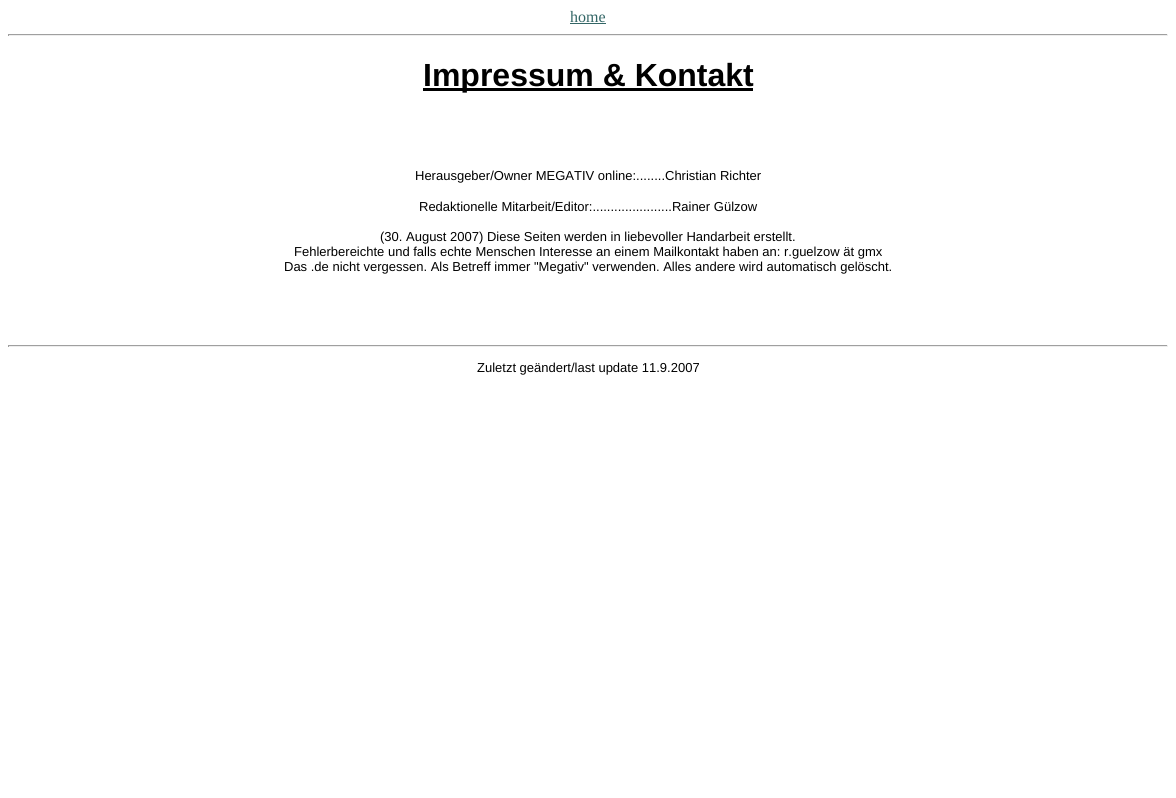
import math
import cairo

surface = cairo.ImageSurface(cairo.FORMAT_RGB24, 1176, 798)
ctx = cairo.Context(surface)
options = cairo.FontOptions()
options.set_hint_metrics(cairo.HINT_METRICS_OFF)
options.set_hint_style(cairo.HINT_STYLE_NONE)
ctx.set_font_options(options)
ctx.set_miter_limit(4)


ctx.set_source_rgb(1, 1, 1)
ctx.paint()
ctx.select_font_face("Liberation Serif")
ctx.set_font_size(16)
ctx.set_source_rgb(0.2, 0.4, 0.4)
ctx.move_to(570, 22)
ctx.show_text("home")
ctx.rectangle(570, 23, 36, 1)
ctx.fill()
ctx.set_source_rgb(0.624, 0.624, 0.624)
ctx.rectangle(8, 34, 1160, 1)
ctx.fill()
ctx.set_source_rgb(0.933, 0.933, 0.933)
ctx.rectangle(1167, 34, 1, 2)
ctx.fill()
ctx.rectangle(8, 35, 1160, 1)
ctx.fill()
ctx.set_source_rgb(0.624, 0.624, 0.624)
ctx.rectangle(8, 34, 1, 2)
ctx.fill()
ctx.set_source_rgb(0, 0, 0)
ctx.rectangle(423, 88, 330, 3)
ctx.fill()
ctx.select_font_face("Liberation Sans", cairo.FONT_SLANT_NORMAL, cairo.FONT_WEIGHT_BOLD)
ctx.set_font_size(32)
ctx.move_to(423, 86)
ctx.show_text("Impressum & Kontakt")
ctx.select_font_face("Liberation Sans")
ctx.set_font_size(13)
ctx.move_to(415, 180)
ctx.show_text("Herausgeber/Owner MEGATIV online:........Christian Richter")
ctx.move_to(419, 211)
ctx.show_text("Redaktionelle Mitarbeit/Editor:......................Rainer Gülzow")
ctx.move_to(380, 241)
ctx.show_text("(30. August 2007) Diese Seiten werden in liebevoller Handarbeit erstellt.")
ctx.move_to(294, 256)
ctx.show_text("Fehlerbereichte und falls echte Menschen Interesse an einem Mailkontakt haben an: r.guelzow ät gmx")
ctx.move_to(284, 271)
ctx.show_text("Das .de nicht vergessen. Als Betreff immer \"Megativ\" verwenden. Alles andere wird automatisch gelöscht.")
ctx.set_source_rgb(0.624, 0.624, 0.624)
ctx.rectangle(8, 345, 1160, 1)
ctx.fill()
ctx.set_source_rgb(0.933, 0.933, 0.933)
ctx.rectangle(1167, 345, 1, 2)
ctx.fill()
ctx.rectangle(8, 346, 1160, 1)
ctx.fill()
ctx.set_source_rgb(0.624, 0.624, 0.624)
ctx.rectangle(8, 345, 1, 2)
ctx.fill()
ctx.set_source_rgb(0, 0, 0)
ctx.move_to(477, 372)
ctx.show_text("Zuletzt geändert/last update 11.9.2007")
surface.write_to_png("page.png")
